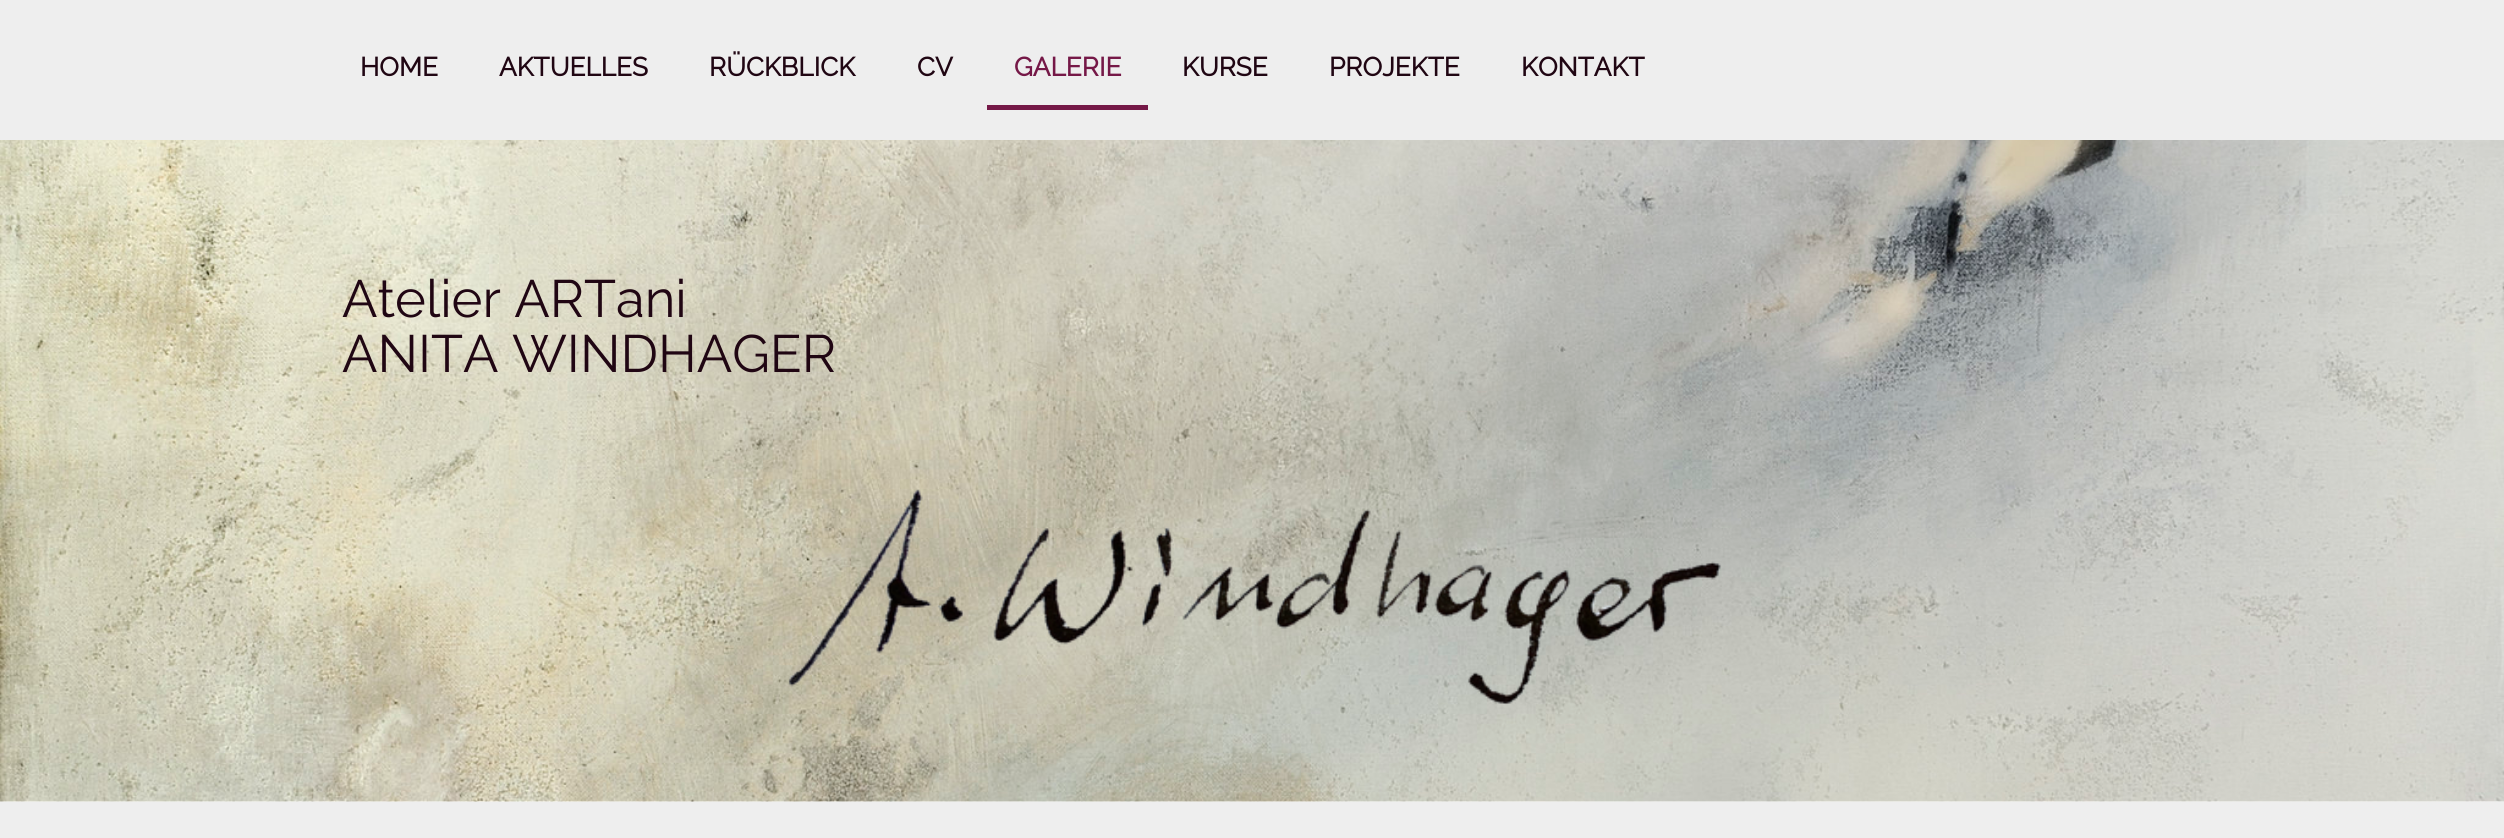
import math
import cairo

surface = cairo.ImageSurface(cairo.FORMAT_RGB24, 2504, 838)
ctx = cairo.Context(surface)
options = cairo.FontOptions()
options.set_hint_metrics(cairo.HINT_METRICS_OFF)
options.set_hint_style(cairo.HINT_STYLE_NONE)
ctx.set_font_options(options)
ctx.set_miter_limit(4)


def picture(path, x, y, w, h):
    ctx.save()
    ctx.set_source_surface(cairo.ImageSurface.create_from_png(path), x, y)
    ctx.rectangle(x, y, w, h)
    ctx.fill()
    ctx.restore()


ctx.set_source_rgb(1, 1, 1)
ctx.paint()
ctx.set_source_rgb(0.933, 0.933, 0.933)
ctx.rectangle(0, 0, 2504, 140)
ctx.fill()
ctx.select_font_face("Raleway", cairo.FONT_SLANT_NORMAL, cairo.FONT_WEIGHT_BOLD)
ctx.set_font_size(26.25)
ctx.set_source_rgb(0.125, 0.027, 0.078)
ctx.move_to(360, 76)
ctx.show_text("HOME")
ctx.move_to(499, 76)
ctx.show_text("AKTUELLES")
ctx.move_to(709, 76)
ctx.show_text("RÜCKBLICK")
ctx.move_to(917, 76)
ctx.show_text("CV")
ctx.set_source_rgb(0.459, 0.094, 0.278)
ctx.rectangle(987, 105, 161, 5)
ctx.fill()
ctx.move_to(1014, 76)
ctx.show_text("GALERIE")
ctx.set_source_rgb(0.125, 0.027, 0.078)
ctx.move_to(1182, 76)
ctx.show_text("KURSE")
ctx.move_to(1329, 76)
ctx.show_text("PROJEKTE")
ctx.move_to(1521, 76)
ctx.show_text("KONTAKT")
picture("img1.png", 0, 140, 2504, 662)
ctx.select_font_face("Raleway Thin")
ctx.set_font_size(52.5)
ctx.move_to(342, 317)
ctx.show_text("Atelier ARTani")
ctx.move_to(342, 372)
ctx.show_text("ANITA WINDHAGER")
picture("img2.png", 788, 489, 933, 216)
ctx.set_source_rgb(0.933, 0.933, 0.933)
ctx.rectangle(0, 802, 2504, 36)
ctx.fill()
surface.write_to_png("page.png")
